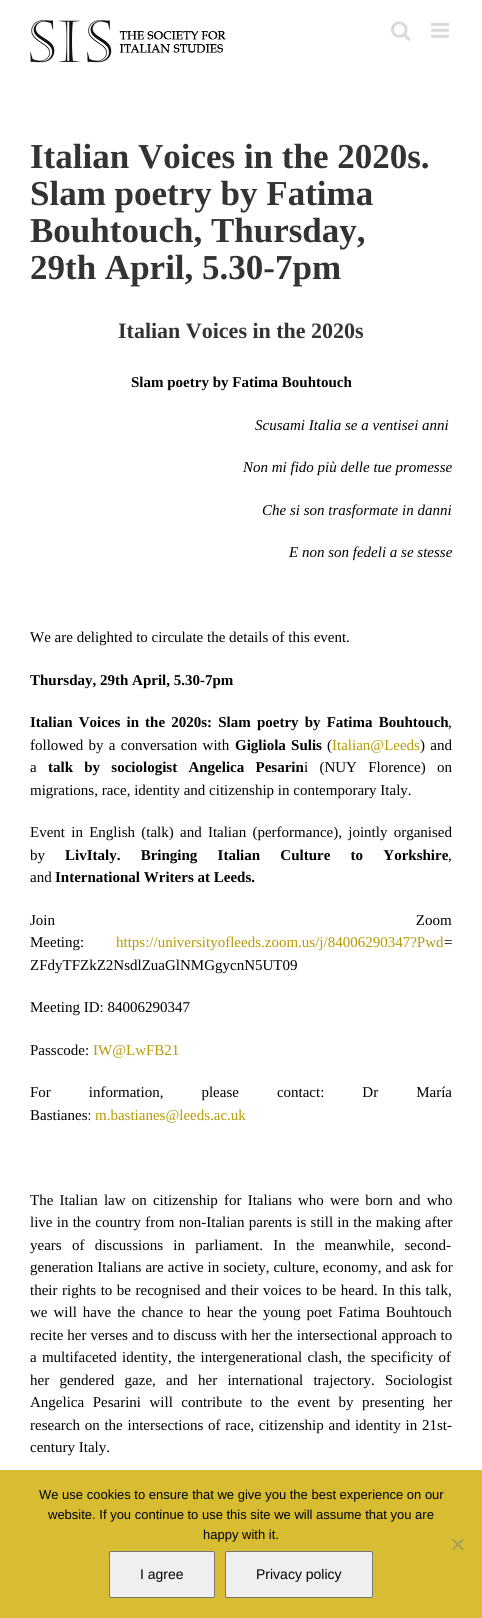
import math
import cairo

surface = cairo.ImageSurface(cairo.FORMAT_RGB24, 482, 1618)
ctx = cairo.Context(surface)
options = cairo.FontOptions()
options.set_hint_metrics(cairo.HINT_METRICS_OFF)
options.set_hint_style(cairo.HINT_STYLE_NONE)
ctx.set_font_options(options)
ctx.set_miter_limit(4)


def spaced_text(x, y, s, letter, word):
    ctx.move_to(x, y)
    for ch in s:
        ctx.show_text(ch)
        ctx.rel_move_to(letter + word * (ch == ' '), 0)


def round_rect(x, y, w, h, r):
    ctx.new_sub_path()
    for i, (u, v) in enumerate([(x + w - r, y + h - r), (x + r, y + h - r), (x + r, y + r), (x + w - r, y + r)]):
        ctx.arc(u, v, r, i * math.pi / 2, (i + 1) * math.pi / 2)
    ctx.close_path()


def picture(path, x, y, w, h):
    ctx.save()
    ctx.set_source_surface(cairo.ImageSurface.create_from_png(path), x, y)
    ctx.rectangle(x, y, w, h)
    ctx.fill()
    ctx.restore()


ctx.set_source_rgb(1, 1, 1)
ctx.paint()
picture("img1.png", 30, 20, 196, 43)
picture("img2.png", 391, 21, 20, 20)
picture("img3.png", 431, 22, 18, 16)
ctx.select_font_face("Liberation Serif", cairo.FONT_SLANT_NORMAL, cairo.FONT_WEIGHT_BOLD)
ctx.set_font_size(35)
ctx.set_source_rgb(0.2, 0.2, 0.2)
ctx.move_to(30, 168)
ctx.show_text("Italian Voices in the 2020s.")
ctx.move_to(30, 205)
ctx.show_text("Slam poetry by Fatima")
ctx.move_to(30, 242)
ctx.show_text("Bouhtouch, Thursday,")
ctx.move_to(30, 279)
ctx.show_text("29th April, 5.30-7pm")
ctx.set_font_size(22)
ctx.move_to(118, 338)
ctx.show_text("Italian Voices in the 2020s")
ctx.set_font_size(15)
ctx.set_source_rgb(0, 0, 0)
ctx.move_to(131, 387)
ctx.show_text("Slam poetry by Fatima Bouhtouch")
ctx.select_font_face("Liberation Serif", cairo.FONT_SLANT_ITALIC)
ctx.move_to(255, 430)
ctx.show_text("Scusami Italia se a ventisei anni")
ctx.move_to(243, 472)
ctx.show_text("Non mi fido più delle tue promesse")
ctx.move_to(262, 515)
ctx.show_text("Che si son trasformate in danni")
ctx.move_to(289, 557)
ctx.show_text("E non son fedeli a se stesse")
ctx.select_font_face("Liberation Serif")
ctx.move_to(30, 642)
ctx.show_text("We are delighted to circulate the details of this event.")
ctx.select_font_face("Liberation Serif", cairo.FONT_SLANT_NORMAL, cairo.FONT_WEIGHT_BOLD)
ctx.move_to(30, 685)
ctx.show_text("Thursday, 29th April, 5.30-7pm")
spaced_text(30, 727, "Italian Voices in the 2020s: Slam poetry by Fatima Bouhtouch", 0, 2.4)
ctx.select_font_face("Liberation Serif")
ctx.move_to(448, 727)
ctx.show_text(",")
spaced_text(30, 750, "followed by a conversation with", 0, 1.5)
ctx.select_font_face("Liberation Serif", cairo.FONT_SLANT_NORMAL, cairo.FONT_WEIGHT_BOLD)
spaced_text(235, 750, "Gigliola Sulis", 0, 1.5)
ctx.select_font_face("Liberation Serif")
ctx.move_to(327, 750)
ctx.show_text("(")
ctx.set_source_rgb(0.718, 0.6, 0)
ctx.move_to(332, 750)
ctx.show_text("Italian@Leeds")
ctx.set_source_rgb(0, 0, 0)
spaced_text(420, 750, ") and", 0, 1.5)
ctx.move_to(30, 772)
ctx.show_text("a")
ctx.select_font_face("Liberation Serif", cairo.FONT_SLANT_NORMAL, cairo.FONT_WEIGHT_BOLD)
spaced_text(48, 772, "talk by sociologist Angelica Pesarin", 0, 7.5)
ctx.select_font_face("Liberation Serif")
spaced_text(304, 772, "i (NUY Florence) on", 0, 7.5)
ctx.move_to(30, 795)
ctx.show_text("migrations, race, identity and citizenship in contemporary Italy.")
spaced_text(30, 837, "Event in English (talk) and Italian (performance), jointly organised", 0, 2.5)
ctx.move_to(30, 860)
ctx.show_text("by")
ctx.select_font_face("Liberation Serif", cairo.FONT_SLANT_NORMAL, cairo.FONT_WEIGHT_BOLD)
spaced_text(65, 860, "LivItaly. Bringing Italian Culture to Yorkshire", 0, 16.5)
ctx.select_font_face("Liberation Serif")
ctx.move_to(448, 860)
ctx.show_text(",")
ctx.move_to(30, 882)
ctx.show_text("and")
ctx.select_font_face("Liberation Serif", cairo.FONT_SLANT_NORMAL, cairo.FONT_WEIGHT_BOLD)
ctx.move_to(55, 882)
ctx.show_text("International Writers at Leeds.")
ctx.select_font_face("Liberation Serif")
spaced_text(30, 925, "Join Zoom", 0, 357)
ctx.move_to(30, 947)
ctx.show_text("Meeting:")
ctx.set_source_rgb(0.718, 0.6, 0)
ctx.move_to(116, 947)
ctx.show_text("https://universityofleeds.zoom.us/j/84006290347?Pwd")
ctx.set_source_rgb(0, 0, 0)
ctx.move_to(444, 947)
ctx.show_text("=")
ctx.move_to(30, 970)
ctx.show_text("ZFdyTFZkZ2NsdlZuaGlNMGgycnN5UT09")
ctx.move_to(30, 1012)
ctx.show_text("Meeting ID: 84006290347")
ctx.move_to(30, 1055)
ctx.show_text("Passcode:")
ctx.set_source_rgb(0.718, 0.6, 0)
ctx.move_to(93, 1055)
ctx.show_text("IW@LwFB21")
ctx.set_source_rgb(0, 0, 0)
spaced_text(30, 1097, "For information, please contact: Dr María", 0, 34.25)
ctx.move_to(30, 1120)
ctx.show_text("Bastianes:")
ctx.set_source_rgb(0.718, 0.6, 0)
ctx.move_to(95, 1120)
ctx.show_text("m.bastianes@leeds.ac.uk")
ctx.set_source_rgb(0, 0, 0)
spaced_text(30, 1205, "The Italian law on citizenship for Italians who were born and who", 0, 2.4)
spaced_text(30, 1227, "live in the country from non-Italian parents is still in the making after", 0, 0.5)
spaced_text(30, 1250, "years of discussions in parliament. In the meanwhile, second-", 0, 6.5)
spaced_text(30, 1272, "generation Italians are active in society, culture, economy, and ask for", 0, 0.25)
spaced_text(30, 1295, "their rights to be recognised and their voices to be heard. In this talk,", 0, 0.75)
spaced_text(30, 1317, "we will have the chance to hear the young poet Fatima Bouhtouch", 0, 2.25)
spaced_text(30, 1340, "recite her verses and to discuss with her the intersectional approach to", 0, 0.25)
spaced_text(30, 1362, "a multifaceted identity, the intergenerational clash, the specificity of", 0, 1.5)
spaced_text(30, 1385, "her gendered gaze, and her international trajectory. Sociologist", 0, 6.5)
spaced_text(30, 1407, "Angelica Pesarini will contribute to the event by presenting her", 0, 4.75)
spaced_text(30, 1430, "research on the intersections of race, citizenship and identity in 21st-", 0, 1)
ctx.move_to(30, 1452)
ctx.show_text("century Italy.")
ctx.set_source_rgb(0.847, 0.737, 0.192)
ctx.rectangle(0, 1470, 482, 148)
ctx.fill()
ctx.select_font_face("Liberation Sans")
ctx.set_font_size(13)
ctx.set_source_rgb(0, 0, 0)
ctx.move_to(39, 1499)
ctx.show_text("We use cookies to ensure that we give you the best experience on our")
ctx.move_to(48, 1519)
ctx.show_text("website. If you continue to use this site we will assume that you are")
ctx.move_to(203, 1539)
ctx.show_text("happy with it.")
ctx.set_source_rgb(0.675, 0.62, 0.349)
ctx.new_path()
ctx.move_to(462.5, 1538.5)
ctx.line_to(464, 1540)
ctx.line_to(453.5, 1550.5)
ctx.line_to(452, 1549)
ctx.close_path()
ctx.fill()
ctx.new_path()
ctx.move_to(452, 1540)
ctx.line_to(453.5, 1538.5)
ctx.line_to(464, 1549)
ctx.line_to(462.5, 1550.5)
ctx.close_path()
ctx.fill()
ctx.set_source_rgb(0.937, 0.937, 0.937)
round_rect(109.5, 1551.5, 105, 46, 1.5)
ctx.fill_preserve()
ctx.set_source_rgb(0.463, 0.463, 0.463)
ctx.set_line_width(1)
ctx.stroke()
ctx.set_font_size(14)
ctx.set_source_rgb(0, 0, 0)
ctx.move_to(140, 1579)
ctx.show_text("I agree")
ctx.set_source_rgb(0.937, 0.937, 0.937)
round_rect(225.5, 1551.5, 147, 46, 1.5)
ctx.fill_preserve()
ctx.set_source_rgb(0.463, 0.463, 0.463)
ctx.stroke()
ctx.set_source_rgb(0, 0, 0)
ctx.move_to(256, 1579)
ctx.show_text("Privacy policy")
surface.write_to_png("page.png")
